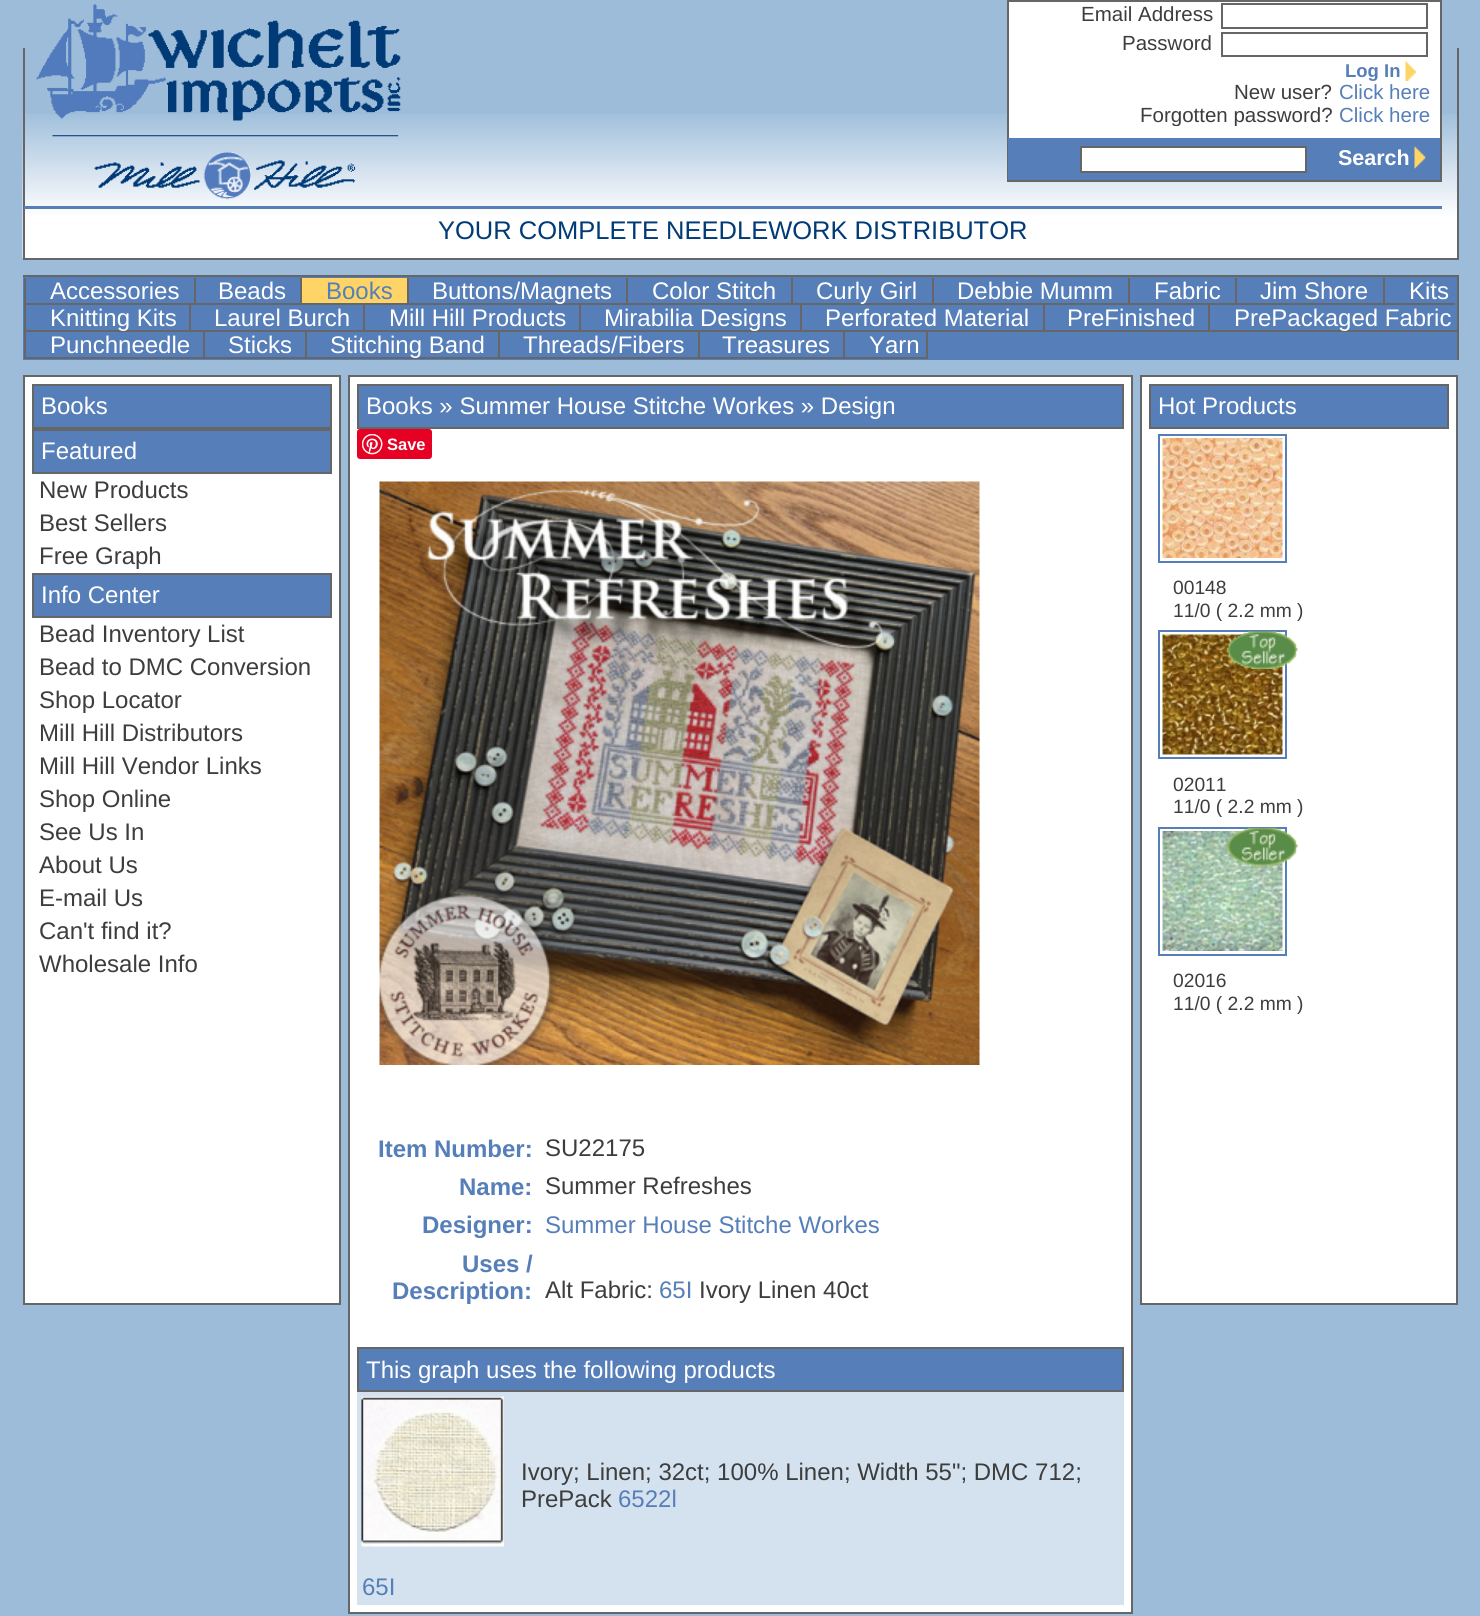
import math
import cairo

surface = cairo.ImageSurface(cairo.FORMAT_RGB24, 1480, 1616)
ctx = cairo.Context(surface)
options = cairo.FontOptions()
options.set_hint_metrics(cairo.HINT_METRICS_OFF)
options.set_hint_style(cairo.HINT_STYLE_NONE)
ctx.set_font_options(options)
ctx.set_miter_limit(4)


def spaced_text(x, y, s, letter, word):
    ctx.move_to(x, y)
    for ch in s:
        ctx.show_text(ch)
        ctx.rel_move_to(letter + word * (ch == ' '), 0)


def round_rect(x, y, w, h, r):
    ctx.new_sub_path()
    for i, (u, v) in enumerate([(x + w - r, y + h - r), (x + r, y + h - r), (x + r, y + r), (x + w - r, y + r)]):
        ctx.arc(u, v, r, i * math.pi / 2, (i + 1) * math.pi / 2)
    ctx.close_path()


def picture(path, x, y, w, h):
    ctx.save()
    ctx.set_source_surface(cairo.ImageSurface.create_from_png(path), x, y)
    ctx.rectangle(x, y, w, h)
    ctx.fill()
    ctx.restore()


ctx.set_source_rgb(0.612, 0.737, 0.855)
ctx.paint()
picture("img4.png", 22, 114, 1435, 144)
picture("img1.png", 36, 4, 365, 196)
ctx.set_source_rgb(1, 1, 1)
ctx.rectangle(1009, 2, 431, 136)
ctx.fill()
ctx.rectangle(1008, 1, 433, 180)
ctx.set_source_rgb(0.4, 0.4, 0.4)
ctx.stroke()
ctx.select_font_face("Liberation Sans")
ctx.set_font_size(20.5)
ctx.set_source_rgb(0.239, 0.239, 0.239)
ctx.move_to(1081, 21)
ctx.show_text("Email Address")
ctx.rectangle(1222, 4, 205, 24)
ctx.set_source_rgb(0.4, 0.4, 0.4)
ctx.stroke()
ctx.set_source_rgb(0.239, 0.239, 0.239)
ctx.move_to(1122, 50)
ctx.show_text("Password")
ctx.rectangle(1222, 33, 205, 23)
ctx.set_source_rgb(0.4, 0.4, 0.4)
ctx.stroke()
ctx.select_font_face("Liberation Sans", cairo.FONT_SLANT_NORMAL, cairo.FONT_WEIGHT_BOLD)
ctx.set_font_size(18.5)
ctx.set_source_rgb(0.337, 0.494, 0.725)
ctx.move_to(1345, 77)
ctx.show_text("Log In")
picture("img2.png", 1405, 61, 11, 20)
ctx.select_font_face("Liberation Sans")
ctx.set_font_size(20.5)
ctx.set_source_rgb(0.239, 0.239, 0.239)
ctx.move_to(1234, 99)
ctx.show_text("New user?")
ctx.set_source_rgb(0.337, 0.494, 0.725)
ctx.move_to(1339, 99)
ctx.show_text("Click here")
ctx.save()
ctx.rectangle(1022, 2, 408, 124)
ctx.clip()
ctx.set_source_rgb(0.239, 0.239, 0.239)
ctx.move_to(1140, 122)
ctx.show_text("Forgotten password?")
ctx.restore()
ctx.move_to(1339, 122)
ctx.show_text("Click here")
ctx.rectangle(1008, 138, 432, 42)
ctx.fill()
ctx.set_source_rgb(1, 1, 1)
ctx.rectangle(1081, 147, 225, 25)
ctx.fill_preserve()
ctx.set_source_rgb(0.4, 0.4, 0.4)
ctx.stroke()
ctx.select_font_face("Liberation Sans", cairo.FONT_SLANT_NORMAL, cairo.FONT_WEIGHT_BOLD)
ctx.set_font_size(21.5)
ctx.set_source_rgb(1, 1, 1)
ctx.move_to(1338, 165)
ctx.show_text("Search")
picture("img3.png", 1414, 146, 12, 23)
ctx.set_source_rgb(0.4, 0.4, 0.4)
ctx.rectangle(1457, 48, 2, 212)
ctx.fill()
ctx.rectangle(23, 258, 1435, 2)
ctx.fill()
ctx.rectangle(23, 48, 2, 212)
ctx.fill()
ctx.set_source_rgb(0.337, 0.494, 0.725)
ctx.rectangle(24, 206, 1418, 3)
ctx.fill()
ctx.select_font_face("Liberation Sans")
ctx.set_font_size(25.5)
ctx.set_source_rgb(0, 0.231, 0.467)
ctx.move_to(438, 239)
ctx.show_text("YOUR COMPLETE NEEDLEWORK DISTRIBUTOR")
ctx.set_source_rgb(0.337, 0.494, 0.725)
ctx.rectangle(23, 277, 1434, 83)
ctx.fill()
ctx.set_source_rgb(0.4, 0.4, 0.4)
ctx.rectangle(23, 275, 1435, 2)
ctx.fill()
ctx.rectangle(1457, 275, 2, 85)
ctx.fill()
ctx.set_font_size(24)
ctx.set_source_rgb(1, 1, 1)
ctx.move_to(50, 299)
ctx.show_text("Accessories")
ctx.set_source_rgb(0.4, 0.4, 0.4)
ctx.rectangle(24, 303, 1431, 2)
ctx.fill()
ctx.rectangle(24, 278, 2, 27)
ctx.fill()
ctx.set_source_rgb(1, 1, 1)
ctx.move_to(218, 299)
ctx.show_text("Beads")
ctx.set_source_rgb(0.4, 0.4, 0.4)
ctx.rectangle(194, 278, 2, 27)
ctx.fill()
ctx.set_source_rgb(0.996, 0.831, 0.4)
ctx.rectangle(302, 278, 105, 25)
ctx.fill()
ctx.set_source_rgb(0.337, 0.494, 0.725)
ctx.move_to(326, 299)
ctx.show_text("Books")
ctx.set_source_rgb(0.4, 0.4, 0.4)
ctx.rectangle(300, 278, 2, 27)
ctx.fill()
ctx.set_source_rgb(1, 1, 1)
ctx.move_to(432, 299)
ctx.show_text("Buttons/Magnets")
ctx.set_source_rgb(0.4, 0.4, 0.4)
ctx.rectangle(407, 278, 2, 27)
ctx.fill()
ctx.set_source_rgb(1, 1, 1)
ctx.move_to(652, 299)
ctx.show_text("Color Stitch")
ctx.set_source_rgb(0.4, 0.4, 0.4)
ctx.rectangle(626, 278, 2, 27)
ctx.fill()
ctx.set_source_rgb(1, 1, 1)
spaced_text(816, 299, "Curly Girl", 0, 1)
ctx.set_source_rgb(0.4, 0.4, 0.4)
ctx.rectangle(791, 278, 2, 27)
ctx.fill()
ctx.set_source_rgb(1, 1, 1)
ctx.move_to(957, 299)
ctx.show_text("Debbie Mumm")
ctx.set_source_rgb(0.4, 0.4, 0.4)
ctx.rectangle(932, 278, 2, 27)
ctx.fill()
ctx.set_source_rgb(1, 1, 1)
ctx.move_to(1154, 299)
ctx.show_text("Fabric")
ctx.set_source_rgb(0.4, 0.4, 0.4)
ctx.rectangle(1128, 278, 2, 27)
ctx.fill()
ctx.set_source_rgb(1, 1, 1)
ctx.move_to(1260, 299)
ctx.show_text("Jim Shore")
ctx.set_source_rgb(0.4, 0.4, 0.4)
ctx.rectangle(1235, 278, 2, 27)
ctx.fill()
ctx.set_source_rgb(1, 1, 1)
ctx.move_to(1409, 299)
ctx.show_text("Kits")
ctx.set_source_rgb(0.4, 0.4, 0.4)
ctx.rectangle(1383, 278, 2, 27)
ctx.fill()
ctx.rectangle(24, 330, 1433, 2)
ctx.fill()
ctx.set_source_rgb(1, 1, 1)
ctx.move_to(50, 326)
ctx.show_text("Knitting Kits")
ctx.set_source_rgb(0.4, 0.4, 0.4)
ctx.rectangle(24, 305, 2, 27)
ctx.fill()
ctx.set_source_rgb(1, 1, 1)
ctx.move_to(214, 326)
ctx.show_text("Laurel Burch")
ctx.set_source_rgb(0.4, 0.4, 0.4)
ctx.rectangle(189, 305, 2, 27)
ctx.fill()
ctx.set_source_rgb(1, 1, 1)
ctx.move_to(389, 326)
ctx.show_text("Mill Hill Products")
ctx.set_source_rgb(0.4, 0.4, 0.4)
ctx.rectangle(363, 305, 2, 27)
ctx.fill()
ctx.set_source_rgb(1, 1, 1)
ctx.move_to(604, 326)
ctx.show_text("Mirabilia Designs")
ctx.set_source_rgb(0.4, 0.4, 0.4)
ctx.rectangle(579, 305, 2, 27)
ctx.fill()
ctx.set_source_rgb(1, 1, 1)
ctx.move_to(825, 326)
ctx.show_text("Perforated Material")
ctx.set_source_rgb(0.4, 0.4, 0.4)
ctx.rectangle(800, 305, 2, 27)
ctx.fill()
ctx.set_source_rgb(1, 1, 1)
ctx.move_to(1067, 326)
ctx.show_text("PreFinished")
ctx.set_source_rgb(0.4, 0.4, 0.4)
ctx.rectangle(1043, 305, 2, 27)
ctx.fill()
ctx.set_source_rgb(1, 1, 1)
ctx.move_to(1234, 326)
ctx.show_text("PrePackaged Fabric")
ctx.set_source_rgb(0.4, 0.4, 0.4)
ctx.rectangle(1208, 305, 2, 27)
ctx.fill()
ctx.set_source_rgb(1, 1, 1)
ctx.move_to(50, 353)
ctx.show_text("Punchneedle")
ctx.set_source_rgb(0.4, 0.4, 0.4)
ctx.rectangle(24, 357, 819, 2)
ctx.fill()
ctx.rectangle(24, 332, 2, 27)
ctx.fill()
ctx.set_source_rgb(1, 1, 1)
ctx.move_to(228, 353)
ctx.show_text("Sticks")
ctx.set_source_rgb(0.4, 0.4, 0.4)
ctx.rectangle(203, 332, 2, 27)
ctx.fill()
ctx.set_source_rgb(1, 1, 1)
ctx.move_to(330, 353)
ctx.show_text("Stitching Band")
ctx.set_source_rgb(0.4, 0.4, 0.4)
ctx.rectangle(305, 332, 2, 27)
ctx.fill()
ctx.set_source_rgb(1, 1, 1)
ctx.move_to(523, 353)
ctx.show_text("Threads/Fibers")
ctx.set_source_rgb(0.4, 0.4, 0.4)
ctx.rectangle(498, 332, 2, 27)
ctx.fill()
ctx.set_source_rgb(1, 1, 1)
ctx.move_to(722, 353)
ctx.show_text("Treasures")
ctx.set_source_rgb(0.4, 0.4, 0.4)
ctx.rectangle(698, 332, 2, 27)
ctx.fill()
ctx.set_source_rgb(1, 1, 1)
ctx.move_to(869, 353)
ctx.show_text("Yarn")
ctx.set_source_rgb(0.4, 0.4, 0.4)
ctx.rectangle(926, 332, 2, 27)
ctx.fill()
ctx.rectangle(843, 357, 84, 2)
ctx.fill()
ctx.rectangle(843, 332, 2, 27)
ctx.fill()
ctx.set_source_rgb(1, 1, 1)
ctx.rectangle(24, 376, 316, 928)
ctx.fill_preserve()
ctx.set_source_rgb(0.4, 0.4, 0.4)
ctx.stroke()
ctx.set_source_rgb(0.337, 0.494, 0.725)
ctx.rectangle(33, 385, 298, 43)
ctx.fill_preserve()
ctx.set_source_rgb(0.4, 0.4, 0.4)
ctx.stroke()
ctx.set_source_rgb(1, 1, 1)
ctx.move_to(41, 414)
ctx.show_text("Books")
ctx.set_source_rgb(0.337, 0.494, 0.725)
ctx.rectangle(33, 430, 298, 43)
ctx.fill_preserve()
ctx.set_source_rgb(0.4, 0.4, 0.4)
ctx.stroke()
ctx.set_source_rgb(1, 1, 1)
ctx.move_to(41, 459)
ctx.show_text("Featured")
ctx.set_source_rgb(0.239, 0.239, 0.239)
ctx.move_to(39, 498)
ctx.show_text("New Products")
ctx.move_to(39, 531)
ctx.show_text("Best Sellers")
ctx.move_to(39, 564)
ctx.show_text("Free Graph")
ctx.set_source_rgb(0.337, 0.494, 0.725)
ctx.rectangle(33, 574, 298, 43)
ctx.fill_preserve()
ctx.set_source_rgb(0.4, 0.4, 0.4)
ctx.stroke()
ctx.set_source_rgb(1, 1, 1)
ctx.move_to(41, 603)
ctx.show_text("Info Center")
ctx.set_source_rgb(0.239, 0.239, 0.239)
ctx.move_to(39, 642)
ctx.show_text("Bead Inventory List")
ctx.move_to(39, 675)
ctx.show_text("Bead to DMC Conversion")
ctx.move_to(39, 708)
ctx.show_text("Shop Locator")
ctx.move_to(39, 741)
ctx.show_text("Mill Hill Distributors")
ctx.move_to(39, 774)
ctx.show_text("Mill Hill Vendor Links")
ctx.move_to(39, 807)
ctx.show_text("Shop Online")
ctx.move_to(39, 840)
ctx.show_text("See Us In")
ctx.move_to(39, 873)
ctx.show_text("About Us")
ctx.move_to(39, 906)
ctx.show_text("E-mail Us")
ctx.move_to(39, 939)
ctx.show_text("Can't find it?")
ctx.move_to(39, 972)
ctx.show_text("Wholesale Info")
ctx.set_source_rgb(1, 1, 1)
ctx.rectangle(349, 376, 783, 1237)
ctx.fill_preserve()
ctx.set_source_rgb(0.4, 0.4, 0.4)
ctx.stroke()
ctx.set_source_rgb(0.337, 0.494, 0.725)
ctx.rectangle(358, 385, 765, 43)
ctx.fill_preserve()
ctx.set_source_rgb(0.4, 0.4, 0.4)
ctx.stroke()
ctx.set_source_rgb(1, 1, 1)
ctx.move_to(366, 414)
ctx.show_text("Books » Summer House Stitche Workes » Design")
ctx.set_source_rgb(0.902, 0, 0.137)
round_rect(357, 429, 75, 30, 3)
ctx.fill()
picture("img5.png", 362, 434, 21, 21)
ctx.select_font_face("Liberation Sans", cairo.FONT_SLANT_NORMAL, cairo.FONT_WEIGHT_BOLD)
ctx.set_font_size(16.5)
ctx.set_source_rgb(1, 1, 1)
ctx.move_to(387, 450)
ctx.show_text("Save")
picture("img6.png", 379, 481, 601, 584)
ctx.set_font_size(24)
ctx.set_source_rgb(0.337, 0.494, 0.725)
ctx.move_to(378, 1157)
ctx.show_text("Item Number:")
ctx.select_font_face("Liberation Sans")
ctx.set_source_rgb(0.239, 0.239, 0.239)
ctx.move_to(545, 1156)
ctx.show_text("SU22175")
ctx.select_font_face("Liberation Sans", cairo.FONT_SLANT_NORMAL, cairo.FONT_WEIGHT_BOLD)
ctx.set_source_rgb(0.337, 0.494, 0.725)
ctx.move_to(459, 1195)
ctx.show_text("Name:")
ctx.select_font_face("Liberation Sans")
ctx.set_source_rgb(0.239, 0.239, 0.239)
ctx.move_to(545, 1194)
ctx.show_text("Summer Refreshes")
ctx.select_font_face("Liberation Sans", cairo.FONT_SLANT_NORMAL, cairo.FONT_WEIGHT_BOLD)
ctx.set_source_rgb(0.337, 0.494, 0.725)
ctx.move_to(422, 1233)
ctx.show_text("Designer:")
ctx.select_font_face("Liberation Sans")
ctx.move_to(545, 1233)
ctx.show_text("Summer House Stitche Workes")
ctx.select_font_face("Liberation Sans", cairo.FONT_SLANT_NORMAL, cairo.FONT_WEIGHT_BOLD)
ctx.move_to(462, 1272)
ctx.show_text("Uses /")
ctx.move_to(392, 1299)
ctx.show_text("Description:")
ctx.select_font_face("Liberation Sans")
ctx.set_source_rgb(0.239, 0.239, 0.239)
ctx.move_to(545, 1298)
ctx.show_text("Alt Fabric:")
ctx.set_source_rgb(0.337, 0.494, 0.725)
ctx.move_to(659, 1298)
ctx.show_text("65I")
ctx.set_source_rgb(0.239, 0.239, 0.239)
ctx.move_to(699, 1298)
ctx.show_text("Ivory Linen 40ct")
ctx.set_source_rgb(0.337, 0.494, 0.725)
ctx.rectangle(358, 1348, 765, 43)
ctx.fill_preserve()
ctx.set_source_rgb(0.4, 0.4, 0.4)
ctx.stroke()
ctx.set_source_rgb(1, 1, 1)
ctx.move_to(366, 1378)
ctx.show_text("This graph uses the following products")
ctx.set_source_rgb(0.831, 0.886, 0.937)
ctx.rectangle(357, 1392, 767, 213)
ctx.fill()
ctx.set_source_rgb(0.239, 0.239, 0.239)
ctx.move_to(521, 1480)
ctx.show_text("Ivory; Linen; 32ct; 100% Linen; Width 55\"; DMC 712;")
ctx.move_to(521, 1507)
ctx.show_text("PrePack")
ctx.set_source_rgb(0.337, 0.494, 0.725)
ctx.move_to(618, 1507)
ctx.show_text("6522l")
picture("img7.png", 361, 1396, 143, 151)
ctx.move_to(362, 1595)
ctx.show_text("65I")
ctx.set_source_rgb(1, 1, 1)
ctx.rectangle(1141, 376, 316, 928)
ctx.fill_preserve()
ctx.set_source_rgb(0.4, 0.4, 0.4)
ctx.stroke()
ctx.set_source_rgb(0.337, 0.494, 0.725)
ctx.rectangle(1150, 385, 298, 43)
ctx.fill_preserve()
ctx.set_source_rgb(0.4, 0.4, 0.4)
ctx.stroke()
ctx.set_source_rgb(1, 1, 1)
ctx.move_to(1158, 414)
ctx.show_text("Hot Products")
ctx.rectangle(1159, 435, 127, 127)
ctx.set_source_rgb(0.337, 0.494, 0.725)
ctx.stroke()
picture("img8.png", 1162, 438, 121, 120)
ctx.set_font_size(19.25)
ctx.set_source_rgb(0.239, 0.239, 0.239)
ctx.move_to(1173, 594)
ctx.show_text("00148")
ctx.move_to(1173, 617)
ctx.show_text("11/0 ( 2.2 mm )")
ctx.rectangle(1159, 631, 127, 127)
ctx.set_source_rgb(0.337, 0.494, 0.725)
ctx.stroke()
picture("img9.png", 1162, 634, 121, 121)
picture("img10.png", 1226, 631, 72, 38)
ctx.set_source_rgb(0.239, 0.239, 0.239)
ctx.move_to(1173, 791)
ctx.show_text("02011")
ctx.move_to(1173, 813)
ctx.show_text("11/0 ( 2.2 mm )")
ctx.rectangle(1159, 828, 127, 127)
ctx.set_source_rgb(0.337, 0.494, 0.725)
ctx.stroke()
picture("img11.png", 1162, 831, 121, 120)
picture("img12.png", 1226, 827, 72, 39)
ctx.set_source_rgb(0.239, 0.239, 0.239)
ctx.move_to(1173, 987)
ctx.show_text("02016")
ctx.move_to(1173, 1010)
ctx.show_text("11/0 ( 2.2 mm )")
surface.write_to_png("page.png")
